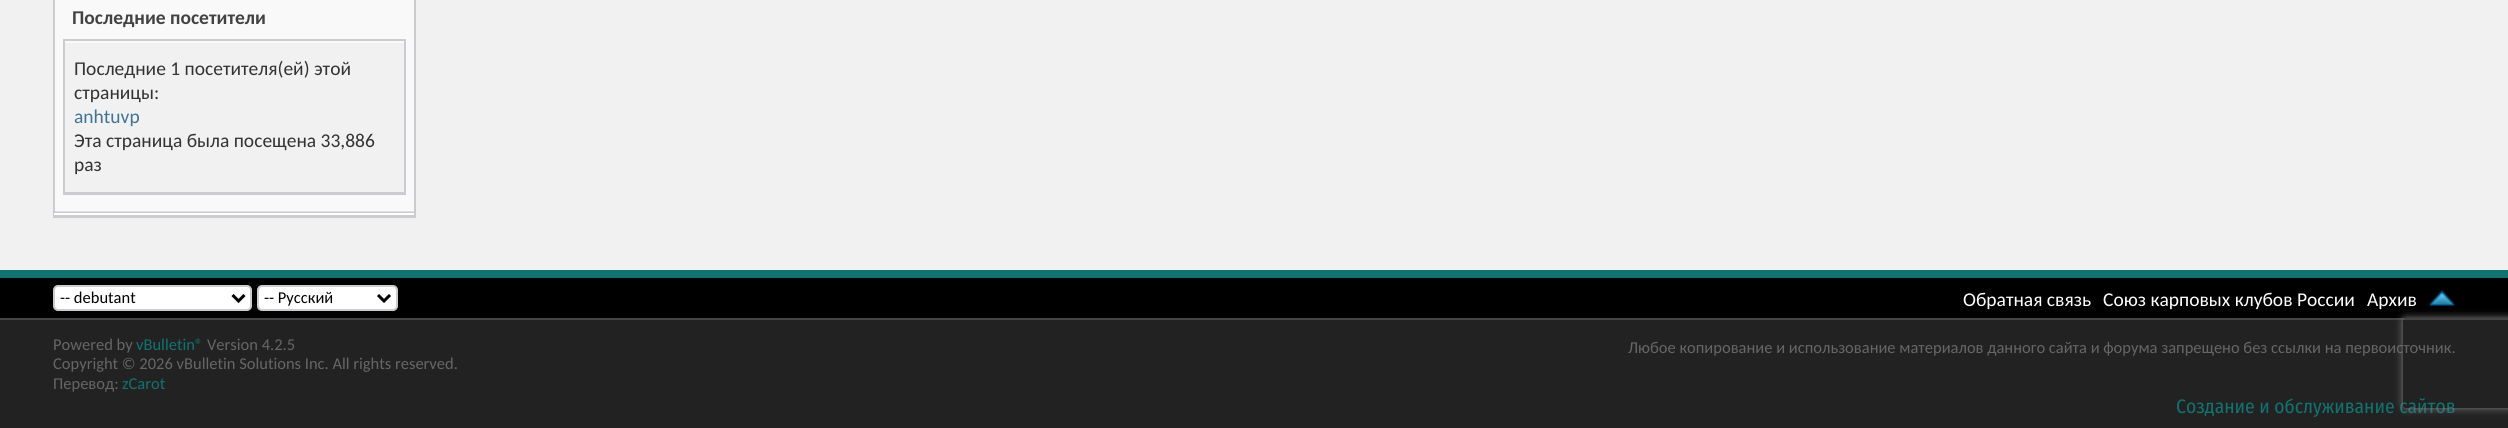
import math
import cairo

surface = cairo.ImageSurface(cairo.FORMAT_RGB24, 2508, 428)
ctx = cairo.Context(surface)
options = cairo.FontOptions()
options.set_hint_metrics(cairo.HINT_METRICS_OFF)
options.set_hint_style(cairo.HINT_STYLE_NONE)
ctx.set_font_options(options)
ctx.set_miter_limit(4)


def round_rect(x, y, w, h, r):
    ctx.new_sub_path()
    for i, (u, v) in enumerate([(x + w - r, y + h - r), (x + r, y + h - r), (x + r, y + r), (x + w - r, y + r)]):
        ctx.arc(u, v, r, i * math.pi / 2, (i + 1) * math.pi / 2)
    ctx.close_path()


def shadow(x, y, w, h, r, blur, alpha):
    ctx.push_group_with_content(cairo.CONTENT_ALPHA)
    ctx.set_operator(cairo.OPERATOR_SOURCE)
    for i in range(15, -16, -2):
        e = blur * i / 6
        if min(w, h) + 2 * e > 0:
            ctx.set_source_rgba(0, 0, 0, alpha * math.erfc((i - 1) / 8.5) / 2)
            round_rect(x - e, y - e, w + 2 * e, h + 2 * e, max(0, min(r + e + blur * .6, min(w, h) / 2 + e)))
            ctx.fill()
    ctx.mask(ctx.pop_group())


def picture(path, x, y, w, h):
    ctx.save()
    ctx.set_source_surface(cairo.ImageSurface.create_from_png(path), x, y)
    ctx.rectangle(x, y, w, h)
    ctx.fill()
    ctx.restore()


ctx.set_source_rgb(0.945, 0.945, 0.945)
ctx.paint()
ctx.set_source_rgb(0.973, 0.973, 0.973)
ctx.rectangle(55, 0, 359, 212)
ctx.fill()
ctx.set_source_rgb(0.796, 0.8, 0.812)
ctx.rectangle(414, 0, 2, 218)
ctx.fill()
ctx.rectangle(53, 215, 363, 3)
ctx.fill()
ctx.rectangle(53, 0, 2, 218)
ctx.fill()
ctx.select_font_face("Carlito", cairo.FONT_SLANT_NORMAL, cairo.FONT_WEIGHT_BOLD)
ctx.set_font_size(19.5)
ctx.set_source_rgb(0.259, 0.259, 0.259)
ctx.move_to(72, 24)
ctx.show_text("Последние посетители")
ctx.set_source_rgb(0.796, 0.8, 0.812)
ctx.rectangle(63, 39, 342, 2)
ctx.fill()
ctx.rectangle(404, 39, 2, 156)
ctx.fill()
ctx.rectangle(63, 192, 342, 3)
ctx.fill()
ctx.rectangle(63, 39, 2, 156)
ctx.fill()
ctx.set_source_rgb(0.945, 0.945, 0.945)
ctx.rectangle(65, 43, 339, 149)
ctx.fill()
ctx.select_font_face("Carlito")
ctx.set_source_rgb(0.2, 0.2, 0.2)
ctx.move_to(74, 75)
ctx.show_text("Последние 1 посетителя(ей) этой")
ctx.move_to(74, 99)
ctx.show_text("страницы:")
ctx.set_source_rgb(0.255, 0.451, 0.58)
ctx.move_to(74, 123)
ctx.show_text("anhtuvp")
ctx.set_source_rgb(0.2, 0.2, 0.2)
ctx.move_to(74, 147)
ctx.show_text("Эта страница была посещена 33,886")
ctx.move_to(74, 171)
ctx.show_text("раз")
picture("img1.png", 54, 211, 360, 1)
ctx.set_source_rgb(0.796, 0.8, 0.812)
ctx.rectangle(54, 212, 360, 1)
ctx.fill()
ctx.set_source_rgb(1, 1, 1)
ctx.rectangle(54, 213, 360, 2)
ctx.fill()
ctx.set_source_rgb(0.133, 0.133, 0.133)
ctx.rectangle(0, 320, 2508, 108)
ctx.fill()
ctx.set_source_rgb(0, 0, 0)
ctx.rectangle(0, 278, 2508, 40)
ctx.fill()
ctx.set_source_rgb(0.067, 0.451, 0.435)
ctx.rectangle(0, 270, 2508, 8)
ctx.fill()
ctx.set_source_rgb(1, 1, 1)
round_rect(54, 286, 197, 24, 4)
ctx.fill_preserve()
ctx.set_source_rgb(0.796, 0.8, 0.812)
ctx.stroke()
ctx.new_path()
ctx.move_to(232.5, 295)
ctx.line_to(238.5, 301)
ctx.line_to(244.5, 295)
ctx.set_source_rgb(0, 0, 0)
ctx.set_line_width(3)
ctx.stroke()
ctx.set_font_size(16.5)
ctx.move_to(60, 303)
ctx.show_text("-- debutant")
ctx.set_source_rgb(1, 1, 1)
round_rect(258, 286, 139, 24, 4)
ctx.fill_preserve()
ctx.set_source_rgb(0.796, 0.8, 0.812)
ctx.set_line_width(2)
ctx.stroke()
ctx.new_path()
ctx.move_to(378, 295)
ctx.line_to(384, 301)
ctx.line_to(390, 295)
ctx.set_source_rgb(0, 0, 0)
ctx.set_line_width(3)
ctx.stroke()
ctx.move_to(264, 303)
ctx.show_text("-- Русский")
ctx.set_font_size(19.5)
ctx.set_source_rgb(1, 1, 1)
ctx.move_to(1963, 306)
ctx.show_text("Обратная связь")
ctx.move_to(2103, 306)
ctx.show_text("Союз карповых клубов России")
ctx.move_to(2367, 306)
ctx.show_text("Архив")
picture("img2.png", 2429, 290, 26, 16)
ctx.set_source_rgb(0.267, 0.267, 0.267)
ctx.rectangle(0, 318, 2508, 2)
ctx.fill()
ctx.set_font_size(16.5)
ctx.set_source_rgb(0.4, 0.4, 0.4)
ctx.move_to(53, 350)
ctx.show_text("Powered by")
ctx.set_source_rgb(0.067, 0.451, 0.435)
ctx.move_to(136, 350)
ctx.show_text("vBulletin®")
ctx.set_source_rgb(0.4, 0.4, 0.4)
ctx.move_to(207, 350)
ctx.show_text("Version 4.2.5")
ctx.move_to(53, 369)
ctx.show_text("Copyright © 2026 vBulletin Solutions Inc. All rights reserved.")
ctx.move_to(53, 389)
ctx.show_text("Перевод:")
ctx.set_source_rgb(0.067, 0.451, 0.435)
ctx.move_to(122, 389)
ctx.show_text("zCarot")
ctx.set_source_rgb(0.4, 0.4, 0.4)
ctx.move_to(1628, 353)
ctx.show_text("Любое копирование и использование материалов данного сайта и форума запрещено без ссылки на первоисточник.")
ctx.select_font_face("Fira Sans Condensed")
ctx.set_font_size(19.5)
ctx.set_source_rgb(0.067, 0.451, 0.435)
ctx.move_to(2176, 413)
ctx.show_text("Создание и обслуживание сайтов")
ctx.save()
ctx.set_fill_rule(cairo.FILL_RULE_EVEN_ODD)
ctx.new_path()
ctx.move_to(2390, 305)
ctx.line_to(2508, 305)
ctx.line_to(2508, 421)
ctx.line_to(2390, 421)
ctx.close_path()
ctx.move_to(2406, 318)
ctx.line_to(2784, 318)
ctx.curve_to(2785.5, 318, 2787, 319.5, 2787, 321)
ctx.line_to(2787, 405)
ctx.curve_to(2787, 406.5, 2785.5, 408, 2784, 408)
ctx.line_to(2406, 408)
ctx.curve_to(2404.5, 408, 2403, 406.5, 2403, 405)
ctx.line_to(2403, 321)
ctx.curve_to(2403, 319.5, 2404.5, 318, 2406, 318)
ctx.close_path()
ctx.clip()
ctx.set_source_rgb(0.502, 0.502, 0.502)
shadow(2403, 318, 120, 90, 3, 4, 1)
ctx.restore()
surface.write_to_png("page.png")
